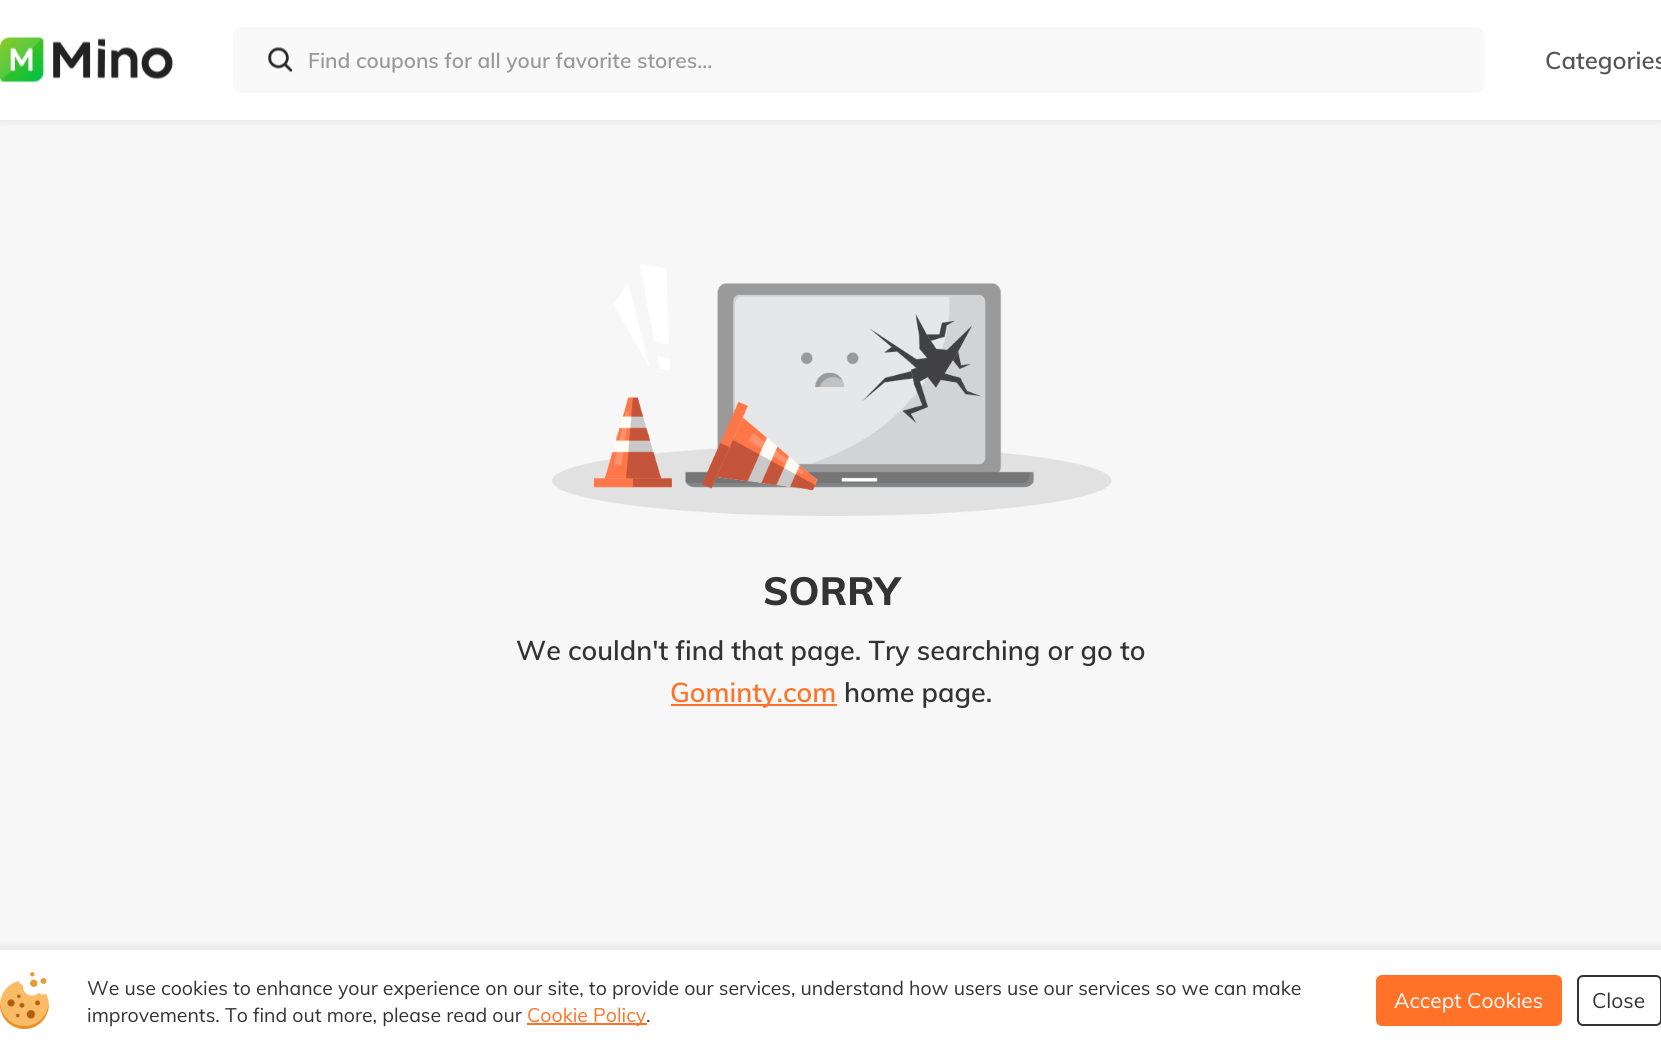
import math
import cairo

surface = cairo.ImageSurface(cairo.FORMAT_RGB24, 1661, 1053)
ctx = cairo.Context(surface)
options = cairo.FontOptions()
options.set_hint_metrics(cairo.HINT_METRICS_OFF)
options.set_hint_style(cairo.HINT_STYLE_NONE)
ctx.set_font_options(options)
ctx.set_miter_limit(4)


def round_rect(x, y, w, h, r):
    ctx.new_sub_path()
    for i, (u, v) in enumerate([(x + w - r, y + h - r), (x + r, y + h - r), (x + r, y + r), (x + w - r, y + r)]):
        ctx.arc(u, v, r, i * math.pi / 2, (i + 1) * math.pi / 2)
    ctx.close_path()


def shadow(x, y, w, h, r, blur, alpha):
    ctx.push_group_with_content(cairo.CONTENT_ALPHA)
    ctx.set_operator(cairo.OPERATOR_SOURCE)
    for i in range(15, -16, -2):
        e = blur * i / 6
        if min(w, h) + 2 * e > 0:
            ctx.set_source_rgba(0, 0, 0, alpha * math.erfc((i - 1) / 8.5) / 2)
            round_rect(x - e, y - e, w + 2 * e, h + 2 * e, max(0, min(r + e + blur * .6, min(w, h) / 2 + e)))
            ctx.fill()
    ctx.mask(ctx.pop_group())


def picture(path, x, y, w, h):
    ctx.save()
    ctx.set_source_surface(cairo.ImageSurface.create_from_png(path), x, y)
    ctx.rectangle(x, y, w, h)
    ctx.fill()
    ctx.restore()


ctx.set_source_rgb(0.965, 0.965, 0.965)
ctx.paint()
ctx.set_source_rgb(0, 0, 0)
shadow(0, 0, 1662, 120, 0, 4.5, 0.1)
ctx.set_source_rgb(1, 1, 1)
ctx.rectangle(0, 0, 1661, 120)
ctx.fill()
picture("img1.png", 0, 37, 173, 46)
ctx.set_source_rgb(0.976, 0.976, 0.976)
round_rect(233, 27, 1252, 66, 9)
ctx.fill()
picture("img2.png", 267, 46, 26, 27)
ctx.select_font_face("Mulish SemiBold")
ctx.set_font_size(21)
ctx.set_source_rgb(0.6, 0.6, 0.6)
ctx.move_to(308, 68)
ctx.show_text("Find coupons for all your favorite stores...")
ctx.set_font_size(24)
ctx.set_source_rgb(0.333, 0.333, 0.333)
ctx.move_to(1545, 69)
ctx.show_text("Categories")
picture("img3.png", 552, 264, 560, 252)
ctx.select_font_face("Mulish ExtraBold")
ctx.set_font_size(39)
ctx.set_source_rgb(0.2, 0.2, 0.2)
ctx.move_to(763, 605)
ctx.show_text("SORRY")
ctx.select_font_face("Mulish SemiBold")
ctx.set_font_size(27)
ctx.move_to(516, 660)
ctx.show_text("We couldn't find that page. Try searching or go to")
ctx.set_source_rgb(1, 0.447, 0.153)
ctx.rectangle(671, 704, 166, 2)
ctx.fill()
ctx.move_to(670, 702)
ctx.show_text("Gominty.com")
ctx.set_source_rgb(0.2, 0.2, 0.2)
ctx.move_to(844, 702)
ctx.show_text("home page.")
ctx.set_source_rgb(0, 0, 0)
shadow(0, 948, 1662, 105, 0, 4.5, 0.1)
ctx.set_source_rgb(1, 1, 1)
ctx.rectangle(0, 950, 1661, 103)
ctx.fill()
ctx.set_source_rgb(0.933, 0.933, 0.933)
ctx.rectangle(0, 948, 1661, 2)
ctx.fill()
picture("img4.png", 0, 972, 49, 57)
ctx.select_font_face("Mulish")
ctx.set_font_size(19.5)
ctx.set_source_rgb(0.2, 0.2, 0.2)
ctx.move_to(87, 995)
ctx.show_text("We use cookies to enhance your experience on our site, to provide our services, understand how users use our services so we can make")
ctx.move_to(87, 1022)
ctx.show_text("improvements. To find out more, please read our")
ctx.set_source_rgb(1, 0.447, 0.153)
ctx.rectangle(527, 1023, 120, 2)
ctx.fill()
ctx.move_to(527, 1022)
ctx.show_text("Cookie Policy")
ctx.set_source_rgb(0.2, 0.2, 0.2)
ctx.move_to(646, 1022)
ctx.show_text(".")
ctx.set_source_rgb(1, 0.447, 0.153)
round_rect(1376, 975, 186, 51, 6)
ctx.fill()
ctx.set_font_size(21)
ctx.set_source_rgb(1, 1, 1)
ctx.move_to(1394, 1008)
ctx.show_text("Accept Cookies")
round_rect(1578, 976, 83, 49, 5)
ctx.set_source_rgb(0.2, 0.2, 0.2)
ctx.stroke()
ctx.move_to(1592, 1008)
ctx.show_text("Close")
surface.write_to_png("page.png")
